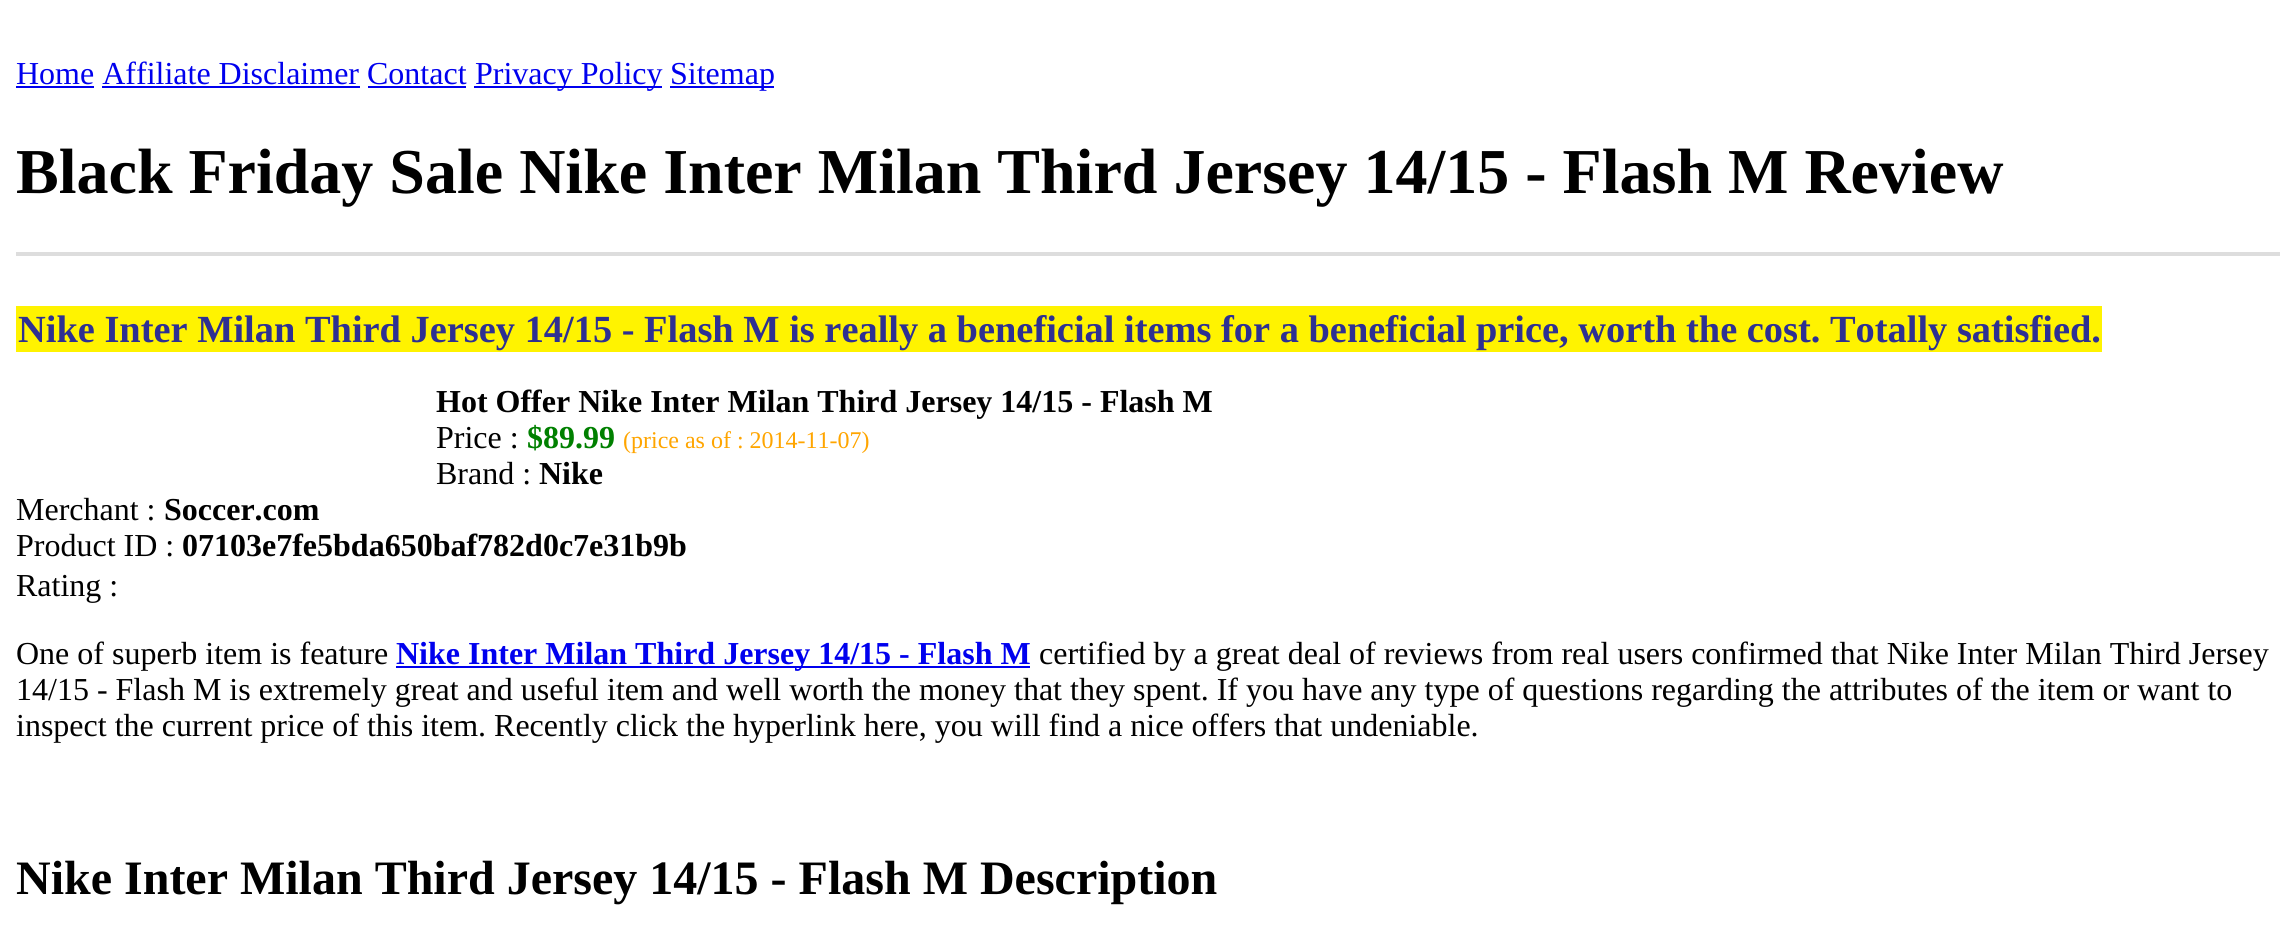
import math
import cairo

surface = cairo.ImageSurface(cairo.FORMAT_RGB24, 2296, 943)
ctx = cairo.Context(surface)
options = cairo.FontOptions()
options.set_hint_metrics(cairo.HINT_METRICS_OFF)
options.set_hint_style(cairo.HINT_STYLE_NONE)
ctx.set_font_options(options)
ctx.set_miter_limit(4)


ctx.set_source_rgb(1, 1, 1)
ctx.paint()
ctx.select_font_face("Liberation Serif")
ctx.set_font_size(32)
ctx.set_source_rgb(0, 0, 0.933)
ctx.move_to(16, 84)
ctx.show_text("Home Affiliate Disclaimer Contact")
ctx.rectangle(16, 86, 78, 2)
ctx.fill()
ctx.rectangle(474, 86, 188, 2)
ctx.fill()
ctx.move_to(475, 84)
ctx.show_text("Privacy Policy")
ctx.rectangle(670, 86, 104, 2)
ctx.fill()
ctx.move_to(670, 84)
ctx.show_text("Sitemap")
ctx.rectangle(102, 86, 258, 2)
ctx.fill()
ctx.rectangle(368, 86, 98, 2)
ctx.fill()
ctx.select_font_face("Liberation Serif", cairo.FONT_SLANT_NORMAL, cairo.FONT_WEIGHT_BOLD)
ctx.set_font_size(64)
ctx.set_source_rgb(0, 0, 0)
ctx.move_to(16, 193)
ctx.show_text("Black Friday Sale Nike Inter Milan Third Jersey 14/15 - Flash M Review")
ctx.set_source_rgb(0.867, 0.867, 0.867)
ctx.rectangle(16, 252, 2264, 4)
ctx.fill()
ctx.set_source_rgb(1, 0.953, 0)
ctx.rectangle(16, 306, 2086, 46)
ctx.fill()
ctx.set_font_size(38.4)
ctx.set_source_rgb(0.18, 0.188, 0.573)
ctx.move_to(18, 342)
ctx.show_text("Nike Inter Milan Third Jersey 14/15 - Flash M is really a beneficial items for a beneficial price, worth the cost. Totally satisfied.")
ctx.set_font_size(32)
ctx.set_source_rgb(0, 0, 0)
ctx.move_to(436, 412)
ctx.show_text("Hot Offer Nike Inter Milan Third Jersey 14/15 - Flash M")
ctx.select_font_face("Liberation Serif")
ctx.move_to(436, 448)
ctx.show_text("Price :")
ctx.select_font_face("Liberation Serif", cairo.FONT_SLANT_NORMAL, cairo.FONT_WEIGHT_BOLD)
ctx.set_source_rgb(0, 0.502, 0)
ctx.move_to(527, 448)
ctx.show_text("$89.99")
ctx.select_font_face("Liberation Serif")
ctx.set_font_size(24)
ctx.set_source_rgb(1, 0.647, 0)
ctx.move_to(623, 448)
ctx.show_text("(price as of : 2014-11-07)")
ctx.set_font_size(32)
ctx.set_source_rgb(0, 0, 0)
ctx.move_to(436, 484)
ctx.show_text("Brand :")
ctx.select_font_face("Liberation Serif", cairo.FONT_SLANT_NORMAL, cairo.FONT_WEIGHT_BOLD)
ctx.move_to(539, 484)
ctx.show_text("Nike")
ctx.select_font_face("Liberation Serif")
ctx.move_to(16, 520)
ctx.show_text("Merchant :")
ctx.select_font_face("Liberation Serif", cairo.FONT_SLANT_NORMAL, cairo.FONT_WEIGHT_BOLD)
ctx.move_to(164, 520)
ctx.show_text("Soccer.com")
ctx.select_font_face("Liberation Serif")
ctx.move_to(16, 556)
ctx.show_text("Product ID :")
ctx.select_font_face("Liberation Serif", cairo.FONT_SLANT_NORMAL, cairo.FONT_WEIGHT_BOLD)
ctx.move_to(182, 556)
ctx.show_text("07103e7fe5bda650baf782d0c7e31b9b")
ctx.select_font_face("Liberation Serif")
ctx.move_to(16, 596)
ctx.show_text("Rating :")
ctx.move_to(16, 664)
ctx.show_text("One of superb item is feature")
ctx.set_source_rgb(0, 0, 0.933)
ctx.rectangle(396, 666, 634, 2)
ctx.fill()
ctx.select_font_face("Liberation Serif", cairo.FONT_SLANT_NORMAL, cairo.FONT_WEIGHT_BOLD)
ctx.move_to(396, 664)
ctx.show_text("Nike Inter Milan Third Jersey 14/15 - Flash M")
ctx.select_font_face("Liberation Serif")
ctx.set_source_rgb(0, 0, 0)
ctx.move_to(1039, 664)
ctx.show_text("certified by a great deal of reviews from real users confirmed that Nike Inter Milan Third Jersey")
ctx.move_to(16, 700)
ctx.show_text("14/15 - Flash M is extremely great and useful item and well worth the money that they spent. If you have any type of questions regarding the attributes of the item or want to")
ctx.move_to(16, 736)
ctx.show_text("inspect the current price of this item. Recently click the hyperlink here, you will find a nice offers that undeniable.")
ctx.select_font_face("Liberation Serif", cairo.FONT_SLANT_NORMAL, cairo.FONT_WEIGHT_BOLD)
ctx.set_font_size(48)
ctx.move_to(16, 894)
ctx.show_text("Nike Inter Milan Third Jersey 14/15 - Flash M Description")
surface.write_to_png("page.png")
